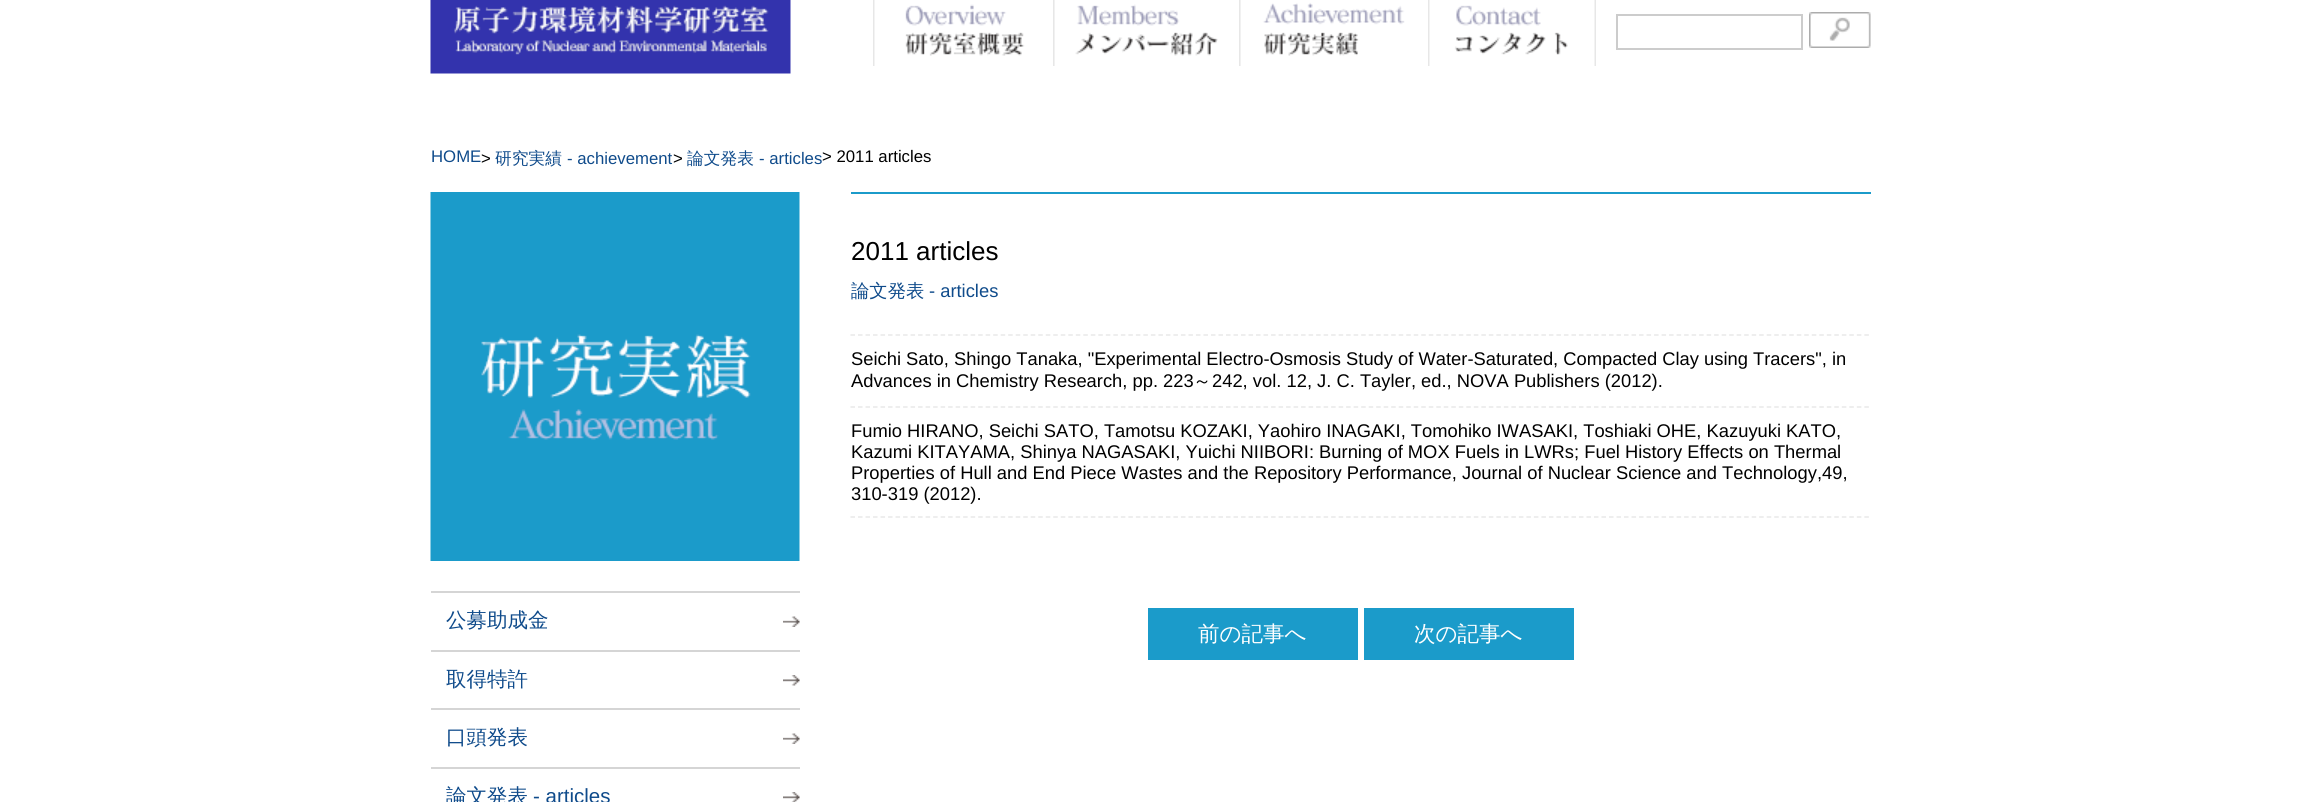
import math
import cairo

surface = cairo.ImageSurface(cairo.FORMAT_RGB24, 2300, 802)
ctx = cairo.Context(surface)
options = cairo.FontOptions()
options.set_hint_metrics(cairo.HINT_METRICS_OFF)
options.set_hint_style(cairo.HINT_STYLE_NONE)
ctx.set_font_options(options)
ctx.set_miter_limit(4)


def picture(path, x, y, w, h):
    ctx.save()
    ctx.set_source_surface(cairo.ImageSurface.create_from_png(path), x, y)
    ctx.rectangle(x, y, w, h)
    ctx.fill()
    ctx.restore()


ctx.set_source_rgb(1, 1, 1)
ctx.paint()
picture("img1.png", 430, 0, 361, 74)
picture("img2.png", 873, 0, 152, 66)
picture("img3.png", 1053, 0, 165, 66)
picture("img4.png", 1239, 0, 166, 66)
picture("img5.png", 1428, 0, 168, 66)
ctx.rectangle(1617, 15, 185, 34)
ctx.set_source_rgb(0.8, 0.8, 0.8)
ctx.stroke()
picture("img6.png", 1809, 12, 62, 36)
ctx.select_font_face("Liberation Sans")
ctx.set_font_size(16.75)
ctx.set_source_rgb(0.059, 0.294, 0.545)
ctx.move_to(431, 162)
ctx.show_text("HOME")
ctx.set_source_rgb(0, 0, 0)
ctx.move_to(481, 164)
ctx.show_text(">")
ctx.select_font_face("WenQuanYi Zen Hei Medium")
ctx.set_source_rgb(0.059, 0.294, 0.545)
ctx.move_to(495, 164)
ctx.show_text("研究実績")
ctx.select_font_face("Liberation Sans")
ctx.move_to(567, 164)
ctx.show_text("- achievement")
ctx.set_source_rgb(0, 0, 0)
ctx.move_to(673, 164)
ctx.show_text(">")
ctx.select_font_face("WenQuanYi Zen Hei Medium")
ctx.set_source_rgb(0.059, 0.294, 0.545)
ctx.move_to(687, 164)
ctx.show_text("論文発表")
ctx.select_font_face("Liberation Sans")
ctx.move_to(759, 164)
ctx.show_text("- articles")
ctx.set_source_rgb(0, 0, 0)
ctx.move_to(822, 162)
ctx.show_text("> 2011 articles")
ctx.set_source_rgb(0.106, 0.608, 0.792)
ctx.rectangle(851, 192, 1020, 2)
ctx.fill()
ctx.set_font_size(26)
ctx.set_source_rgb(0, 0, 0)
ctx.move_to(851, 260)
ctx.show_text("2011 articles")
ctx.select_font_face("WenQuanYi Zen Hei Medium")
ctx.set_font_size(18.35)
ctx.set_source_rgb(0.059, 0.294, 0.545)
ctx.move_to(851, 297)
ctx.show_text("論文発表")
ctx.select_font_face("Liberation Sans")
ctx.move_to(929, 297)
ctx.show_text("- articles")
ctx.new_path()
ctx.move_to(850.5, 335)
ctx.line_to(1870.5, 335)
ctx.set_source_rgb(0.91, 0.91, 0.91)
ctx.set_line_width(1.5)
ctx.set_dash([4.5, 3.01])
ctx.stroke()
ctx.new_path()
ctx.move_to(850.5, 407)
ctx.line_to(1870.5, 407)
ctx.stroke()
ctx.set_source_rgb(0, 0, 0)
ctx.move_to(851, 365)
ctx.show_text("Seichi Sato, Shingo Tanaka, \"Experimental Electro-Osmosis Study of Water-Saturated, Compacted Clay using Tracers\", in")
ctx.move_to(851, 387)
ctx.show_text("Advances in Chemistry Research, pp. 223")
ctx.select_font_face("WenQuanYi Zen Hei Medium")
ctx.move_to(1193, 387)
ctx.show_text("～")
ctx.select_font_face("Liberation Sans")
ctx.move_to(1212, 387)
ctx.show_text("242, vol. 12, J. C. Tayler, ed., NOVA Publishers (2012).")
ctx.new_path()
ctx.move_to(850.5, 517)
ctx.line_to(1870.5, 517)
ctx.set_source_rgb(0.91, 0.91, 0.91)
ctx.stroke()
ctx.set_source_rgb(0, 0, 0)
ctx.move_to(851, 437)
ctx.show_text("Fumio HIRANO, Seichi SATO, Tamotsu KOZAKI, Yaohiro INAGAKI, Tomohiko IWASAKI, Toshiaki OHE, Kazuyuki KATO,")
ctx.move_to(851, 458)
ctx.show_text("Kazumi KITAYAMA, Shinya NAGASAKI, Yuichi NIIBORI: Burning of MOX Fuels in LWRs; Fuel History Effects on Thermal")
ctx.move_to(851, 479)
ctx.show_text("Properties of Hull and End Piece Wastes and the Repository Performance, Journal of Nuclear Science and Technology,49,")
ctx.move_to(851, 500)
ctx.show_text("310-319 (2012).")
ctx.set_source_rgb(0.106, 0.608, 0.792)
ctx.rectangle(1148, 608, 210, 52)
ctx.fill()
ctx.select_font_face("WenQuanYi Zen Hei Medium")
ctx.set_font_size(21.5)
ctx.set_source_rgb(1, 1, 1)
ctx.move_to(1198, 641)
ctx.show_text("前の記事へ")
ctx.set_source_rgb(0.106, 0.608, 0.792)
ctx.rectangle(1364, 608, 210, 52)
ctx.fill()
ctx.set_source_rgb(1, 1, 1)
ctx.move_to(1414, 641)
ctx.show_text("次の記事へ")
picture("img7.png", 430, 192, 370, 369)
picture("img8.png", 783, 616, 17, 11)
ctx.set_source_rgb(0.835, 0.835, 0.835)
ctx.rectangle(431, 591, 369, 2)
ctx.fill()
ctx.set_font_size(20.5)
ctx.set_source_rgb(0.059, 0.294, 0.545)
ctx.move_to(446, 627)
ctx.show_text("公募助成金")
picture("img9.png", 783, 675, 17, 11)
ctx.set_source_rgb(0.835, 0.835, 0.835)
ctx.rectangle(431, 650, 369, 2)
ctx.fill()
ctx.set_source_rgb(0.059, 0.294, 0.545)
ctx.move_to(446, 686)
ctx.show_text("取得特許")
picture("img8.png", 783, 733, 17, 11)
ctx.set_source_rgb(0.835, 0.835, 0.835)
ctx.rectangle(431, 708, 369, 2)
ctx.fill()
ctx.set_source_rgb(0.059, 0.294, 0.545)
ctx.move_to(446, 744)
ctx.show_text("口頭発表")
picture("img10.png", 783, 792, 17, 10)
ctx.set_source_rgb(0.835, 0.835, 0.835)
ctx.rectangle(431, 767, 369, 2)
ctx.fill()
ctx.set_source_rgb(0.059, 0.294, 0.545)
ctx.move_to(446, 803)
ctx.show_text("論文発表")
ctx.select_font_face("Liberation Sans")
ctx.move_to(533, 803)
ctx.show_text("- articles")
surface.write_to_png("page.png")
